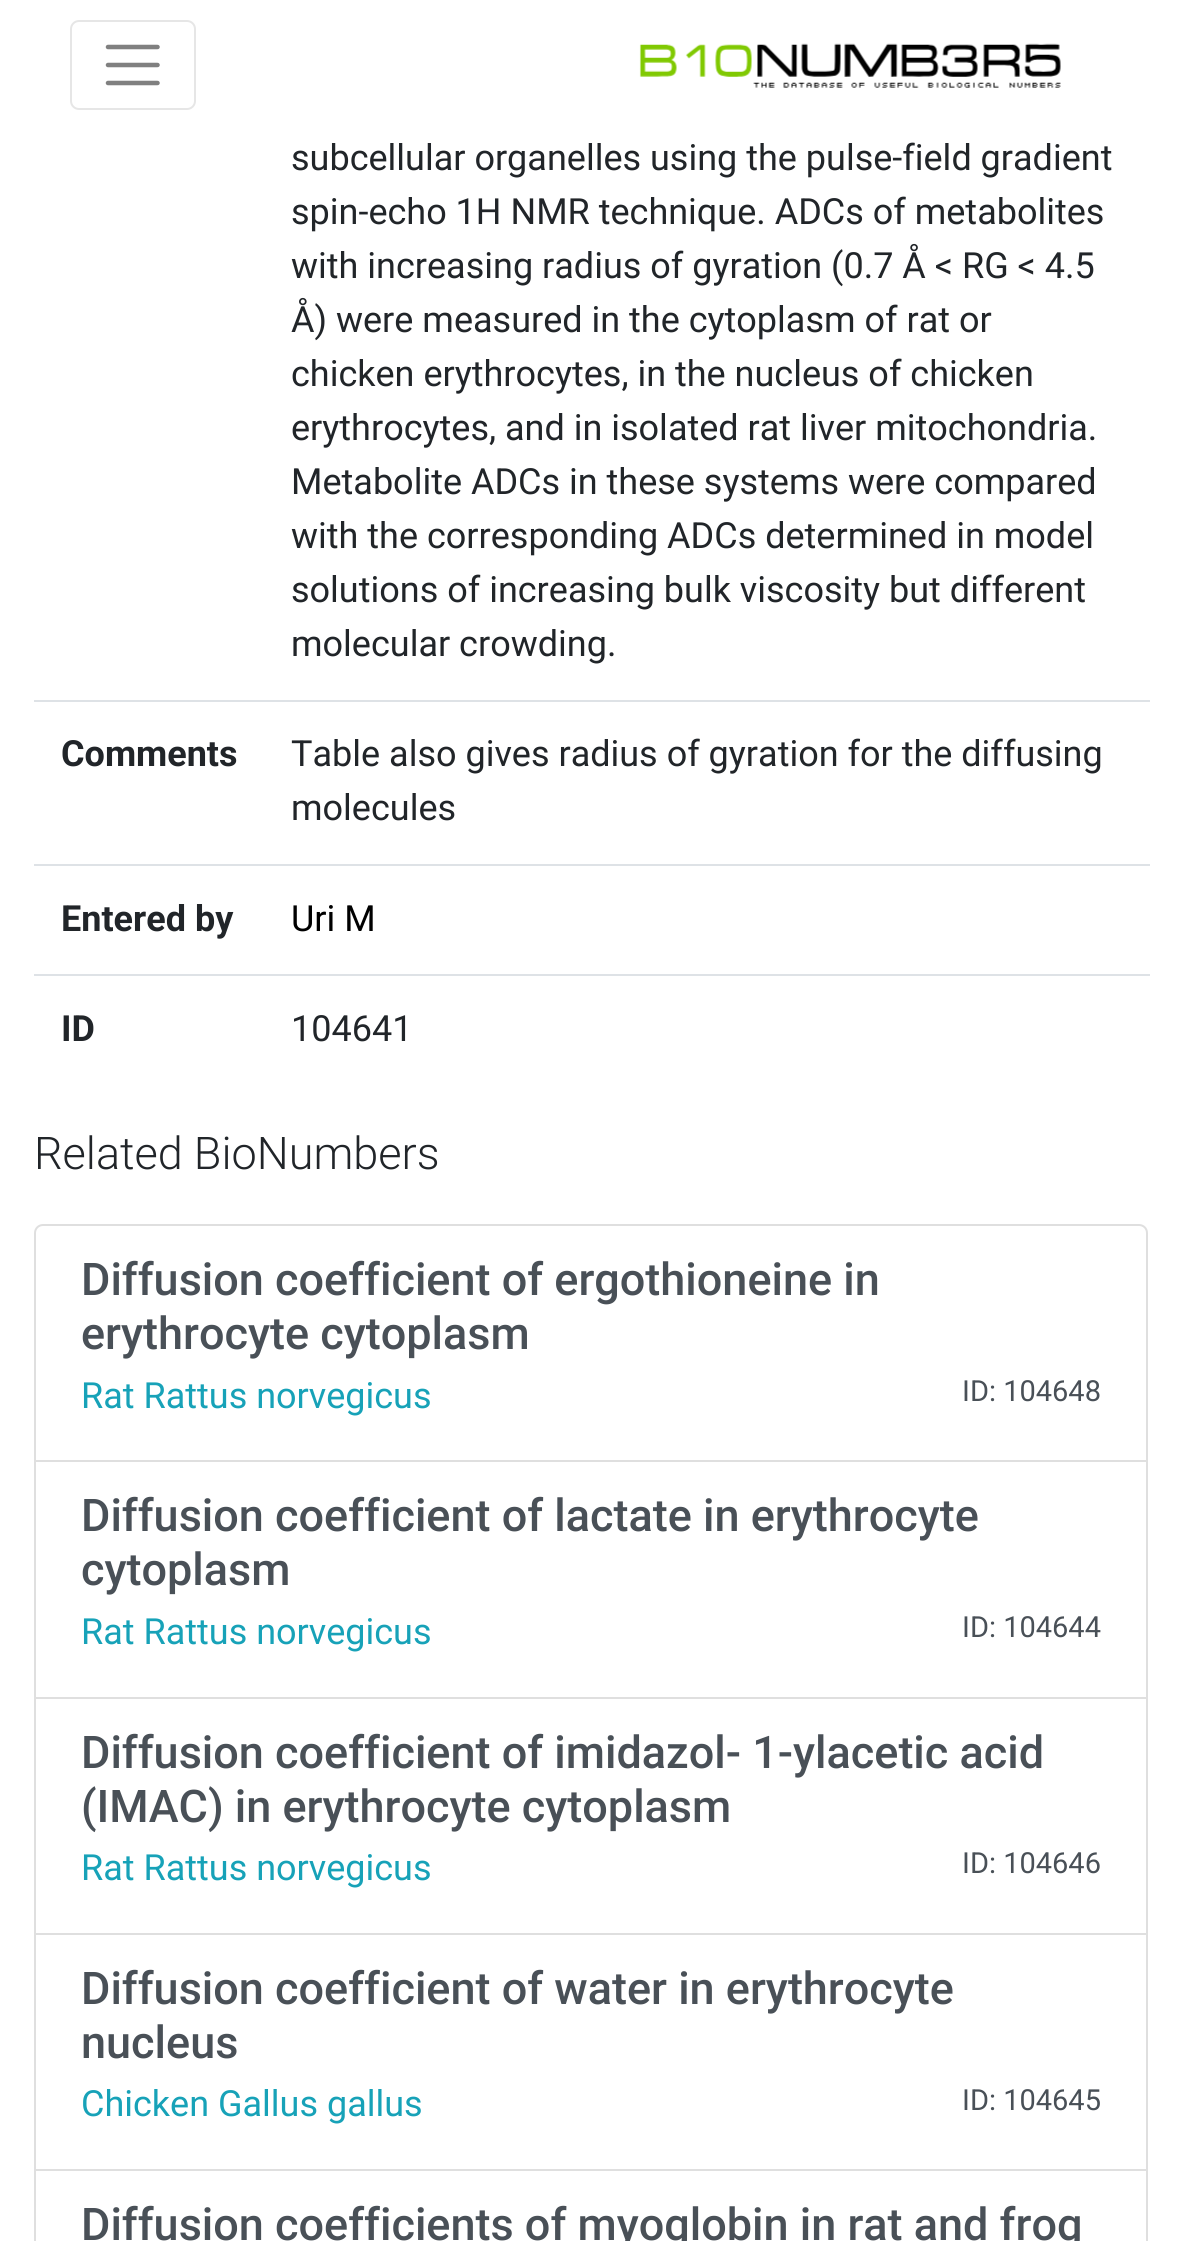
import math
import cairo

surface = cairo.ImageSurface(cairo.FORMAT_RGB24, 1181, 2241)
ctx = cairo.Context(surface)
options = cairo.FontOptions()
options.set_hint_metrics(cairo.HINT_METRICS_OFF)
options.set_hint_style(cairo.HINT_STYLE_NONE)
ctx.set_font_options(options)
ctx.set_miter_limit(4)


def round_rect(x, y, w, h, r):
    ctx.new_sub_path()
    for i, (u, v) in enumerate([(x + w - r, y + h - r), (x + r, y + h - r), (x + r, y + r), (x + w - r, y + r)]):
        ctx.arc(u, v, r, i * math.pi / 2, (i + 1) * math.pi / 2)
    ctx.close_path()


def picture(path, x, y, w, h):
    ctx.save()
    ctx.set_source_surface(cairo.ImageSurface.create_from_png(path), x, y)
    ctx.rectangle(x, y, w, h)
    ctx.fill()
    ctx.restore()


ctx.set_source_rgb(1, 1, 1)
ctx.paint()
round_rect(71, 21, 124, 88, 8)
ctx.set_source_rgb(0.902, 0.902, 0.902)
ctx.stroke()
ctx.new_path()
ctx.move_to(108, 47)
ctx.line_to(157.5, 47)
ctx.move_to(108, 65)
ctx.line_to(157.5, 65)
ctx.move_to(108, 83)
ctx.line_to(157.5, 83)
ctx.set_source_rgb(0.502, 0.502, 0.502)
ctx.set_line_width(4.5)
ctx.set_line_cap(cairo.LINE_CAP_ROUND)
ctx.stroke()
picture("img1.png", 639, 43, 422, 45)
ctx.select_font_face("Roboto")
ctx.set_font_size(36)
ctx.set_source_rgb(0.129, 0.145, 0.161)
ctx.move_to(291, 170)
ctx.show_text("subcellular organelles using the pulse-field gradient")
ctx.move_to(291, 224)
ctx.show_text("spin-echo 1H NMR technique. ADCs of metabolites")
ctx.move_to(291, 278)
ctx.show_text("with increasing radius of gyration (0.7 Å < RG < 4.5")
ctx.move_to(291, 332)
ctx.show_text("Å) were measured in the cytoplasm of rat or")
ctx.move_to(291, 386)
ctx.show_text("chicken erythrocytes, in the nucleus of chicken")
ctx.move_to(291, 440)
ctx.show_text("erythrocytes, and in isolated rat liver mitochondria.")
ctx.move_to(291, 494)
ctx.show_text("Metabolite ADCs in these systems were compared")
ctx.move_to(291, 548)
ctx.show_text("with the corresponding ADCs determined in model")
ctx.move_to(291, 602)
ctx.show_text("solutions of increasing bulk viscosity but different")
ctx.move_to(291, 656)
ctx.show_text("molecular crowding.")
ctx.select_font_face("Roboto", cairo.FONT_SLANT_NORMAL, cairo.FONT_WEIGHT_BOLD)
ctx.move_to(61, 766)
ctx.show_text("Comments")
ctx.set_source_rgb(0.871, 0.886, 0.902)
ctx.rectangle(34, 700, 1116, 2)
ctx.fill()
ctx.select_font_face("Roboto")
ctx.set_source_rgb(0.129, 0.145, 0.161)
ctx.move_to(291, 766)
ctx.show_text("Table also gives radius of gyration for the diffusing")
ctx.move_to(291, 820)
ctx.show_text("molecules")
ctx.select_font_face("Roboto", cairo.FONT_SLANT_NORMAL, cairo.FONT_WEIGHT_BOLD)
ctx.move_to(61, 931)
ctx.show_text("Entered by")
ctx.set_source_rgb(0.871, 0.886, 0.902)
ctx.rectangle(34, 864, 1116, 2)
ctx.fill()
ctx.select_font_face("Roboto")
ctx.set_source_rgb(0, 0, 0)
ctx.move_to(291, 931)
ctx.show_text("Uri M")
ctx.select_font_face("Roboto", cairo.FONT_SLANT_NORMAL, cairo.FONT_WEIGHT_BOLD)
ctx.set_source_rgb(0.129, 0.145, 0.161)
ctx.move_to(61, 1041)
ctx.show_text("ID")
ctx.set_source_rgb(0.871, 0.886, 0.902)
ctx.rectangle(34, 974, 1116, 2)
ctx.fill()
ctx.select_font_face("Roboto")
ctx.set_source_rgb(0.129, 0.145, 0.161)
ctx.move_to(291, 1041)
ctx.show_text("104641")
ctx.select_font_face("Roboto Light")
ctx.set_font_size(45)
ctx.move_to(34, 1169)
ctx.show_text("Related BioNumbers")
ctx.new_path()
ctx.move_to(43, 1225)
ctx.line_to(1139, 1225)
ctx.curve_to(1143.5, 1225, 1147, 1228.5, 1147, 1233)
ctx.line_to(1147, 1462)
ctx.line_to(35, 1462)
ctx.line_to(35, 1233)
ctx.curve_to(35, 1228.5, 38.5, 1225, 43, 1225)
ctx.close_path()
ctx.set_source_rgb(0.875, 0.875, 0.875)
ctx.set_line_width(2)
ctx.set_line_cap(cairo.LINE_CAP_BUTT)
ctx.stroke()
ctx.select_font_face("Roboto Medium")
ctx.set_source_rgb(0.286, 0.314, 0.341)
ctx.move_to(81, 1295)
ctx.show_text("Diffusion coefficient of ergothioneine in")
ctx.move_to(81, 1349)
ctx.show_text("erythrocyte cytoplasm")
ctx.select_font_face("Roboto")
ctx.set_font_size(36)
ctx.set_source_rgb(0.09, 0.635, 0.722)
ctx.move_to(81, 1408)
ctx.show_text("Rat Rattus norvegicus")
ctx.set_font_size(29)
ctx.set_source_rgb(0.286, 0.314, 0.341)
ctx.move_to(962, 1401)
ctx.show_text("ID: 104648")
ctx.set_source_rgb(1, 1, 1)
ctx.rectangle(36, 1462, 1110, 1)
ctx.fill()
ctx.rectangle(35, 1461, 1112, 237)
ctx.set_source_rgb(0.875, 0.875, 0.875)
ctx.stroke()
ctx.select_font_face("Roboto Medium")
ctx.set_font_size(45)
ctx.set_source_rgb(0.286, 0.314, 0.341)
ctx.move_to(81, 1531)
ctx.show_text("Diffusion coefficient of lactate in erythrocyte")
ctx.move_to(81, 1585)
ctx.show_text("cytoplasm")
ctx.select_font_face("Roboto")
ctx.set_font_size(36)
ctx.set_source_rgb(0.09, 0.635, 0.722)
ctx.move_to(81, 1644)
ctx.show_text("Rat Rattus norvegicus")
ctx.set_font_size(29)
ctx.set_source_rgb(0.286, 0.314, 0.341)
ctx.move_to(962, 1637)
ctx.show_text("ID: 104644")
ctx.rectangle(35, 1698, 1112, 236)
ctx.set_source_rgb(0.875, 0.875, 0.875)
ctx.stroke()
ctx.select_font_face("Roboto Medium")
ctx.set_font_size(45)
ctx.set_source_rgb(0.286, 0.314, 0.341)
ctx.move_to(81, 1768)
ctx.show_text("Diffusion coefficient of imidazol- 1-ylacetic acid")
ctx.move_to(81, 1822)
ctx.show_text("(IMAC) in erythrocyte cytoplasm")
ctx.select_font_face("Roboto")
ctx.set_font_size(36)
ctx.set_source_rgb(0.09, 0.635, 0.722)
ctx.move_to(81, 1880)
ctx.show_text("Rat Rattus norvegicus")
ctx.set_font_size(29)
ctx.set_source_rgb(0.286, 0.314, 0.341)
ctx.move_to(962, 1873)
ctx.show_text("ID: 104646")
ctx.rectangle(35, 1934, 1112, 236)
ctx.set_source_rgb(0.875, 0.875, 0.875)
ctx.stroke()
ctx.select_font_face("Roboto Medium")
ctx.set_font_size(45)
ctx.set_source_rgb(0.286, 0.314, 0.341)
ctx.move_to(81, 2004)
ctx.show_text("Diffusion coefficient of water in erythrocyte")
ctx.move_to(81, 2058)
ctx.show_text("nucleus")
ctx.select_font_face("Roboto")
ctx.set_font_size(36)
ctx.set_source_rgb(0.09, 0.635, 0.722)
ctx.move_to(81, 2116)
ctx.show_text("Chicken Gallus gallus")
ctx.set_font_size(29)
ctx.set_source_rgb(0.286, 0.314, 0.341)
ctx.move_to(962, 2110)
ctx.show_text("ID: 104645")
ctx.rectangle(35, 2170, 1112, 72)
ctx.set_source_rgb(0.875, 0.875, 0.875)
ctx.stroke()
ctx.select_font_face("Roboto Medium")
ctx.set_font_size(45)
ctx.set_source_rgb(0.286, 0.314, 0.341)
ctx.move_to(81, 2240)
ctx.show_text("Diffusion coefficients of myoglobin in rat and frog")
surface.write_to_png("page.png")
